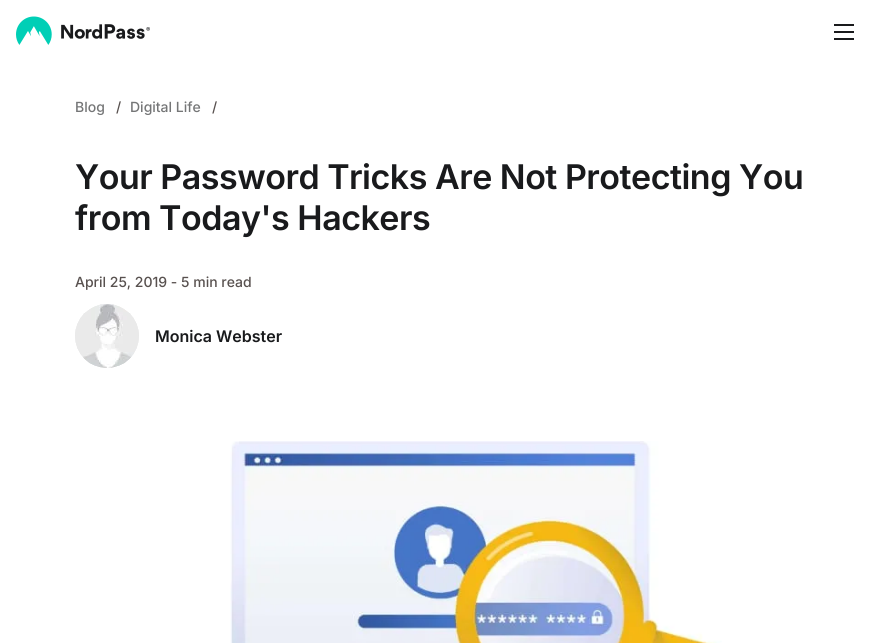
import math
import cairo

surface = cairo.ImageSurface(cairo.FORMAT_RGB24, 878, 643)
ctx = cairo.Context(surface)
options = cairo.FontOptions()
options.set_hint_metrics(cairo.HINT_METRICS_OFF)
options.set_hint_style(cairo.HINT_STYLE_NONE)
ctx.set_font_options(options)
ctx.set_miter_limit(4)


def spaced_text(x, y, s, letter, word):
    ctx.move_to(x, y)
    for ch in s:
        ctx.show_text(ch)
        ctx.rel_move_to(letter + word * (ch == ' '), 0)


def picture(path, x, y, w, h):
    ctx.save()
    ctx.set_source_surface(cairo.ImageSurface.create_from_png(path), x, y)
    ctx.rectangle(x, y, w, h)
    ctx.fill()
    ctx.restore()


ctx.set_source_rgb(1, 1, 1)
ctx.paint()
picture("img1.png", 16, 16, 134, 29)
ctx.set_source_rgb(0.098, 0.102, 0.11)
ctx.rectangle(834, 24, 20, 2)
ctx.fill()
ctx.rectangle(834, 31, 20, 2)
ctx.fill()
ctx.rectangle(834, 38, 20, 2)
ctx.fill()
ctx.select_font_face("Inter Medium")
ctx.set_font_size(14)
ctx.set_source_rgb(0.459, 0.463, 0.467)
ctx.move_to(75, 112)
ctx.show_text("Blog")
ctx.set_source_rgb(0.345, 0.318, 0.31)
ctx.move_to(116, 112)
ctx.show_text("/")
ctx.set_source_rgb(0.459, 0.463, 0.467)
ctx.move_to(130, 112)
ctx.show_text("Digital Life")
ctx.set_source_rgb(0.345, 0.318, 0.31)
ctx.move_to(212, 112)
ctx.show_text("/")
ctx.select_font_face("Inter SemiBold")
ctx.set_font_size(34)
ctx.set_source_rgb(0.098, 0.102, 0.11)
spaced_text(75, 189, "Your Password Tricks Are Not Protecting You", -0.5, 0)
spaced_text(75, 230, "from Today's Hackers", -0.5, 0)
ctx.select_font_face("Inter Medium")
ctx.set_font_size(14)
ctx.set_source_rgb(0.345, 0.318, 0.31)
ctx.move_to(75, 287)
ctx.show_text("April 25, 2019 - 5 min read")
picture("img2.png", 75, 304, 64, 64)
picture("img3.png", 75, 304, 64, 64)
ctx.select_font_face("Inter SemiBold")
ctx.set_font_size(16)
ctx.set_source_rgb(0.098, 0.102, 0.11)
ctx.move_to(155, 342)
ctx.show_text("Monica Webster")
picture("img4.png", 230, 441, 492, 202)
surface.write_to_png("page.png")
